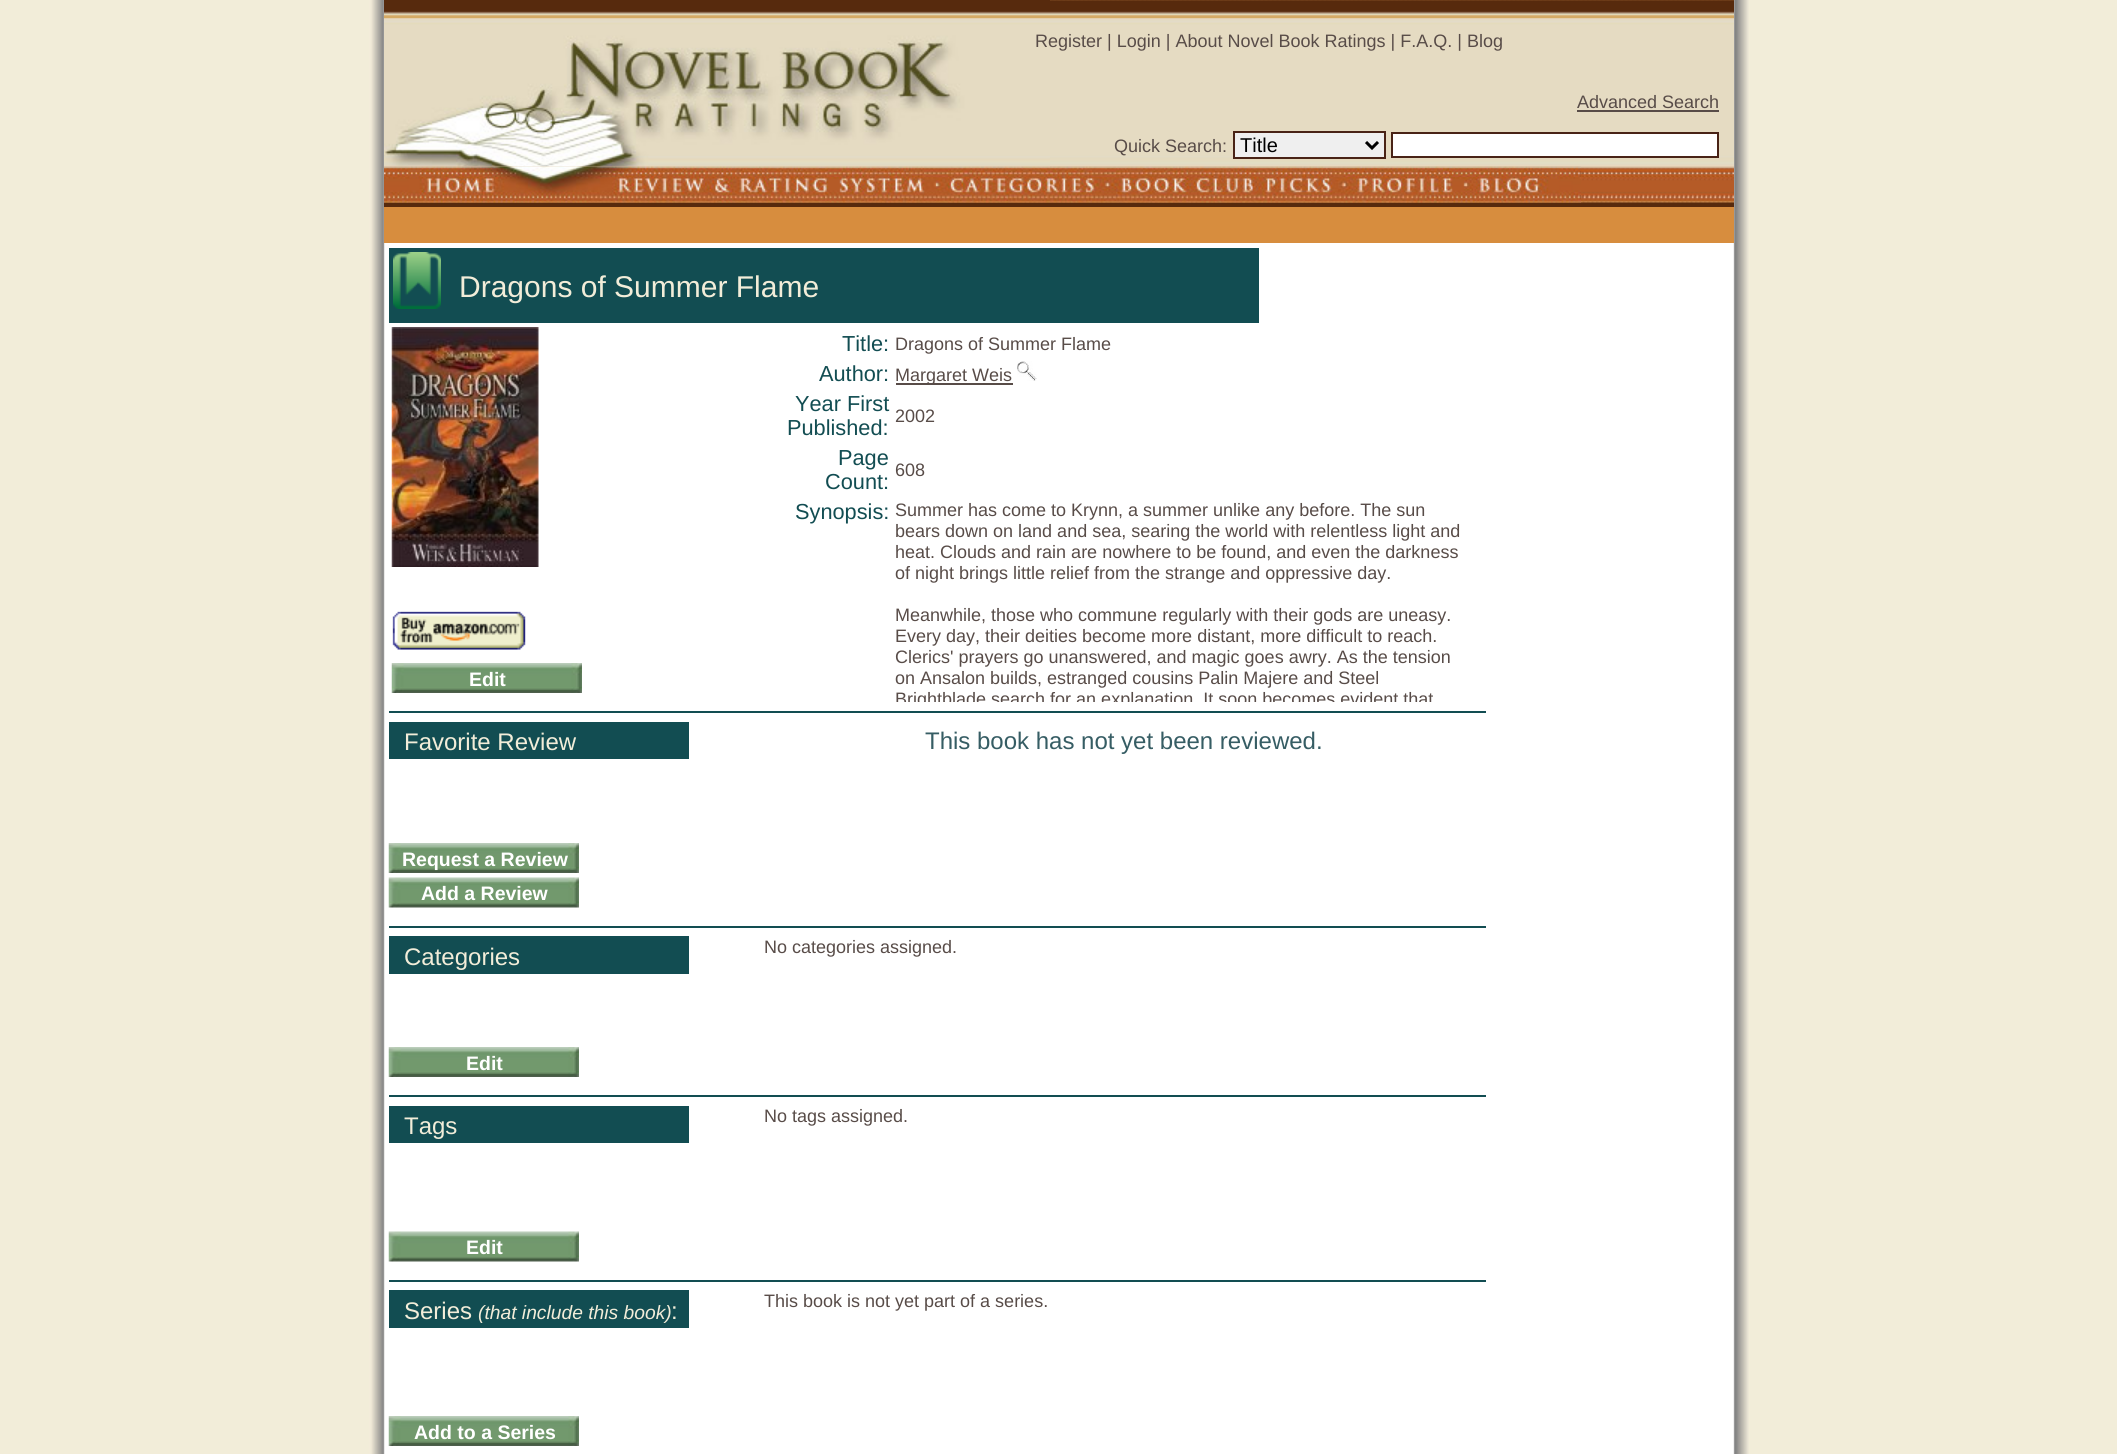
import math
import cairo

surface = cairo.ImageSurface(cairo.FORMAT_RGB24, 2117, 1454)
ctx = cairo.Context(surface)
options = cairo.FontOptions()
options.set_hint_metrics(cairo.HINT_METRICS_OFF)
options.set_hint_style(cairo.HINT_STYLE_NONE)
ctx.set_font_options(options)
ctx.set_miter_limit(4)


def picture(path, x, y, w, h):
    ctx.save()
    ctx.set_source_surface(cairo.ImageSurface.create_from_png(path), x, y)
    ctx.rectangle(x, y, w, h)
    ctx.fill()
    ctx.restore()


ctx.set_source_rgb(0.949, 0.929, 0.851)
ctx.paint()
ctx.set_source_rgb(1, 1, 1)
ctx.rectangle(383, 0, 1352, 1454)
ctx.fill()
picture("img1.png", 369, 0, 1380, 1454)
picture("img2.png", 384, 0, 1350, 207)
picture("img3.png", 384, 0, 666, 167)
ctx.select_font_face("Liberation Sans")
ctx.set_font_size(18)
ctx.set_source_rgb(0.345, 0.298, 0.282)
ctx.move_to(1035, 47)
ctx.show_text("Register | Login | About Novel Book Ratings | F.A.Q. | Blog")
ctx.move_to(1577, 108)
ctx.show_text("Advanced Search")
ctx.rectangle(1577, 110, 142, 2)
ctx.fill()
ctx.move_to(1114, 152)
ctx.show_text("Quick Search:")
ctx.set_source_rgb(0.937, 0.937, 0.937)
ctx.rectangle(1234, 132, 151, 26)
ctx.fill_preserve()
ctx.set_source_rgb(0.286, 0.137, 0.086)
ctx.stroke()
ctx.new_path()
ctx.move_to(1366, 142)
ctx.line_to(1372, 148)
ctx.line_to(1378, 142)
ctx.set_source_rgb(0, 0, 0)
ctx.set_line_width(3)
ctx.stroke()
ctx.set_font_size(20)
ctx.move_to(1240, 152)
ctx.show_text("Title")
ctx.set_source_rgb(1, 1, 1)
ctx.rectangle(1392, 133, 326, 24)
ctx.fill_preserve()
ctx.set_source_rgb(0.286, 0.137, 0.086)
ctx.set_line_width(2)
ctx.stroke()
picture("img4.png", 384, 166, 1197, 37)
ctx.set_source_rgb(0.843, 0.553, 0.243)
ctx.rectangle(384, 207, 1350, 36)
ctx.fill()
ctx.set_source_rgb(0.071, 0.302, 0.322)
ctx.rectangle(389, 248, 870, 75)
ctx.fill()
picture("img5.png", 393, 252, 48, 57)
ctx.set_font_size(30)
ctx.set_source_rgb(0.949, 0.929, 0.851)
ctx.move_to(459, 297)
ctx.show_text("Dragons of Summer Flame")
picture("img6.png", 391, 327, 148, 240)
picture("img7.png", 392, 611, 134, 39)
picture("img8.png", 391, 663, 191, 30)
ctx.select_font_face("Liberation Sans", cairo.FONT_SLANT_NORMAL, cairo.FONT_WEIGHT_BOLD)
ctx.set_font_size(19.5)
ctx.set_source_rgb(1, 1, 1)
ctx.move_to(469, 686)
ctx.show_text("Edit")
ctx.select_font_face("Liberation Sans")
ctx.set_font_size(21.75)
ctx.set_source_rgb(0.071, 0.302, 0.322)
ctx.move_to(842, 351)
ctx.show_text("Title:")
ctx.set_font_size(18)
ctx.set_source_rgb(0.345, 0.298, 0.282)
ctx.move_to(895, 350)
ctx.show_text("Dragons of Summer Flame")
ctx.set_font_size(21.75)
ctx.set_source_rgb(0.071, 0.302, 0.322)
ctx.move_to(819, 381)
ctx.show_text("Author:")
ctx.set_source_rgb(0.345, 0.298, 0.282)
ctx.rectangle(896, 383, 117, 2)
ctx.fill()
ctx.set_font_size(18)
ctx.move_to(895, 381)
ctx.show_text("Margaret Weis")
picture("img9.png", 1017, 361, 20, 20)
ctx.set_font_size(21.75)
ctx.set_source_rgb(0.071, 0.302, 0.322)
ctx.move_to(795, 411)
ctx.show_text("Year First")
ctx.move_to(787, 435)
ctx.show_text("Published:")
ctx.set_font_size(18)
ctx.set_source_rgb(0.345, 0.298, 0.282)
ctx.move_to(895, 422)
ctx.show_text("2002")
ctx.set_font_size(21.75)
ctx.set_source_rgb(0.071, 0.302, 0.322)
ctx.move_to(838, 465)
ctx.show_text("Page")
ctx.move_to(825, 489)
ctx.show_text("Count:")
ctx.set_font_size(18)
ctx.set_source_rgb(0.345, 0.298, 0.282)
ctx.move_to(895, 476)
ctx.show_text("608")
ctx.set_font_size(21.75)
ctx.set_source_rgb(0.071, 0.302, 0.322)
ctx.move_to(795, 519)
ctx.show_text("Synopsis:")
ctx.set_font_size(18)
ctx.set_source_rgb(0.345, 0.298, 0.282)
ctx.move_to(895, 516)
ctx.show_text("Summer has come to Krynn, a summer unlike any before. The sun")
ctx.move_to(895, 537)
ctx.show_text("bears down on land and sea, searing the world with relentless light and")
ctx.move_to(895, 558)
ctx.show_text("heat. Clouds and rain are nowhere to be found, and even the darkness")
ctx.move_to(895, 579)
ctx.show_text("of night brings little relief from the strange and oppressive day.")
ctx.move_to(895, 621)
ctx.show_text("Meanwhile, those who commune regularly with their gods are uneasy.")
ctx.move_to(895, 642)
ctx.show_text("Every day, their deities become more distant, more difficult to reach.")
ctx.move_to(895, 663)
ctx.show_text("Clerics' prayers go unanswered, and magic goes awry. As the tension")
ctx.move_to(895, 684)
ctx.show_text("on Ansalon builds, estranged cousins Palin Majere and Steel")
ctx.save()
ctx.rectangle(767, 327, 709, 375)
ctx.clip()
ctx.move_to(895, 705)
ctx.show_text("Brightblade search for an explanation. It soon becomes evident that")
ctx.restore()
ctx.set_source_rgb(0.071, 0.302, 0.322)
ctx.rectangle(389, 711, 1097, 2)
ctx.fill()
ctx.rectangle(389, 722, 300, 37)
ctx.fill()
ctx.set_font_size(24)
ctx.set_source_rgb(0.949, 0.929, 0.851)
ctx.move_to(404, 750)
ctx.show_text("Favorite Review")
picture("img8.png", 388, 843, 191, 30)
ctx.select_font_face("Liberation Sans", cairo.FONT_SLANT_NORMAL, cairo.FONT_WEIGHT_BOLD)
ctx.set_font_size(19.5)
ctx.set_source_rgb(1, 1, 1)
ctx.move_to(402, 866)
ctx.show_text("Request a Review")
picture("img10.png", 388, 877, 191, 31)
ctx.move_to(421, 900)
ctx.show_text("Add a Review")
ctx.select_font_face("Liberation Sans")
ctx.set_font_size(24)
ctx.set_source_rgb(0.212, 0.365, 0.392)
ctx.move_to(925, 749)
ctx.show_text("This book has not yet been reviewed.")
ctx.set_source_rgb(0.071, 0.302, 0.322)
ctx.rectangle(389, 926, 1097, 2)
ctx.fill()
ctx.rectangle(389, 936, 300, 38)
ctx.fill()
ctx.set_source_rgb(0.949, 0.929, 0.851)
ctx.move_to(404, 965)
ctx.show_text("Categories")
picture("img8.png", 388, 1047, 191, 30)
ctx.select_font_face("Liberation Sans", cairo.FONT_SLANT_NORMAL, cairo.FONT_WEIGHT_BOLD)
ctx.set_font_size(19.5)
ctx.set_source_rgb(1, 1, 1)
ctx.move_to(466, 1070)
ctx.show_text("Edit")
ctx.select_font_face("Liberation Sans")
ctx.set_font_size(18)
ctx.set_source_rgb(0.345, 0.298, 0.282)
ctx.move_to(764, 953)
ctx.show_text("No categories assigned.")
ctx.set_source_rgb(0.071, 0.302, 0.322)
ctx.rectangle(389, 1095, 1097, 2)
ctx.fill()
ctx.rectangle(389, 1106, 300, 37)
ctx.fill()
ctx.set_font_size(24)
ctx.set_source_rgb(0.949, 0.929, 0.851)
ctx.move_to(404, 1134)
ctx.show_text("Tags")
picture("img10.png", 388, 1231, 191, 31)
ctx.select_font_face("Liberation Sans", cairo.FONT_SLANT_NORMAL, cairo.FONT_WEIGHT_BOLD)
ctx.set_font_size(19.5)
ctx.set_source_rgb(1, 1, 1)
ctx.move_to(466, 1254)
ctx.show_text("Edit")
ctx.select_font_face("Liberation Sans")
ctx.set_font_size(18)
ctx.set_source_rgb(0.345, 0.298, 0.282)
ctx.move_to(764, 1122)
ctx.show_text("No tags assigned.")
ctx.set_source_rgb(0.071, 0.302, 0.322)
ctx.rectangle(389, 1280, 1097, 2)
ctx.fill()
ctx.rectangle(389, 1290, 300, 38)
ctx.fill()
ctx.set_font_size(24)
ctx.set_source_rgb(0.949, 0.929, 0.851)
ctx.move_to(404, 1319)
ctx.show_text("Series")
ctx.select_font_face("Liberation Sans", cairo.FONT_SLANT_ITALIC)
ctx.set_font_size(19.25)
ctx.move_to(478, 1319)
ctx.show_text("(that include this book)")
ctx.select_font_face("Liberation Sans")
ctx.set_font_size(24)
ctx.move_to(671, 1319)
ctx.show_text(":")
picture("img8.png", 388, 1416, 191, 30)
ctx.select_font_face("Liberation Sans", cairo.FONT_SLANT_NORMAL, cairo.FONT_WEIGHT_BOLD)
ctx.set_font_size(19.5)
ctx.set_source_rgb(1, 1, 1)
ctx.move_to(414, 1439)
ctx.show_text("Add to a Series")
ctx.select_font_face("Liberation Sans")
ctx.set_font_size(18)
ctx.set_source_rgb(0.345, 0.298, 0.282)
ctx.move_to(764, 1307)
ctx.show_text("This book is not yet part of a series.")
surface.write_to_png("page.png")
